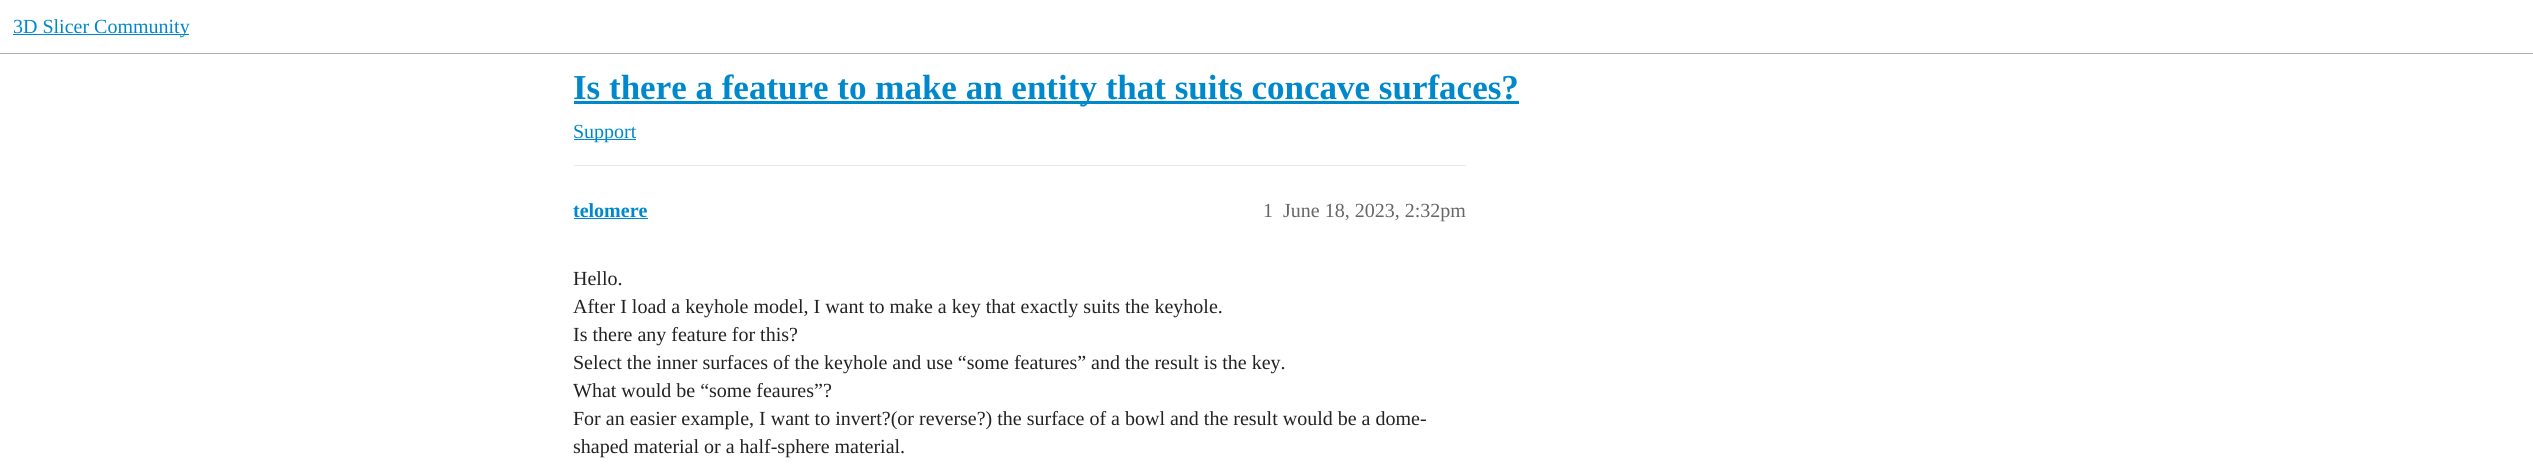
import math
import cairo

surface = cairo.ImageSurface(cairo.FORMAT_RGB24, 2533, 466)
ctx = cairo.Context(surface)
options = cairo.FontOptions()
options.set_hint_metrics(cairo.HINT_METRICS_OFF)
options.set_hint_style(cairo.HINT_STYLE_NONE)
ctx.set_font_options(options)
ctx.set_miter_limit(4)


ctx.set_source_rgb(1, 1, 1)
ctx.paint()
ctx.set_source_rgb(0.686, 0.686, 0.686)
ctx.rectangle(0, 53, 2533, 1)
ctx.fill()
ctx.set_source_rgb(0, 0.533, 0.8)
ctx.rectangle(13, 34, 176, 1)
ctx.fill()
ctx.select_font_face("Liberation Serif")
ctx.set_font_size(20)
ctx.move_to(13, 33)
ctx.show_text("3D Slicer Community")
ctx.rectangle(574, 101, 945, 3)
ctx.fill()
ctx.select_font_face("Liberation Serif", cairo.FONT_SLANT_NORMAL, cairo.FONT_WEIGHT_BOLD)
ctx.set_font_size(35)
ctx.move_to(573, 99)
ctx.show_text("Is there a feature to make an entity that suits concave surfaces?")
ctx.rectangle(574, 139, 62, 1)
ctx.fill()
ctx.select_font_face("Liberation Serif")
ctx.set_font_size(20)
ctx.move_to(573, 138)
ctx.show_text("Support")
ctx.set_source_rgb(0.914, 0.914, 0.914)
ctx.rectangle(574, 165, 892, 1)
ctx.fill()
ctx.select_font_face("Liberation Serif", cairo.FONT_SLANT_NORMAL, cairo.FONT_WEIGHT_BOLD)
ctx.set_source_rgb(0, 0.533, 0.8)
ctx.move_to(573, 217)
ctx.show_text("telomere")
ctx.rectangle(574, 218, 74, 1)
ctx.fill()
ctx.select_font_face("Liberation Serif")
ctx.set_source_rgb(0.4, 0.4, 0.4)
ctx.move_to(1263, 217)
ctx.show_text("1")
ctx.move_to(1283, 217)
ctx.show_text("June 18, 2023, 2:32pm")
ctx.set_source_rgb(0.133, 0.133, 0.133)
ctx.move_to(573, 285)
ctx.show_text("Hello.")
ctx.move_to(573, 313)
ctx.show_text("After I load a keyhole model, I want to make a key that exactly suits the keyhole.")
ctx.move_to(573, 341)
ctx.show_text("Is there any feature for this?")
ctx.move_to(573, 369)
ctx.show_text("Select the inner surfaces of the keyhole and use “some features” and the result is the key.")
ctx.move_to(573, 397)
ctx.show_text("What would be “some feaures”?")
ctx.move_to(573, 425)
ctx.show_text("For an easier example, I want to invert?(or reverse?) the surface of a bowl and the result would be a dome-")
ctx.move_to(573, 453)
ctx.show_text("shaped material or a half-sphere material.")
surface.write_to_png("page.png")
